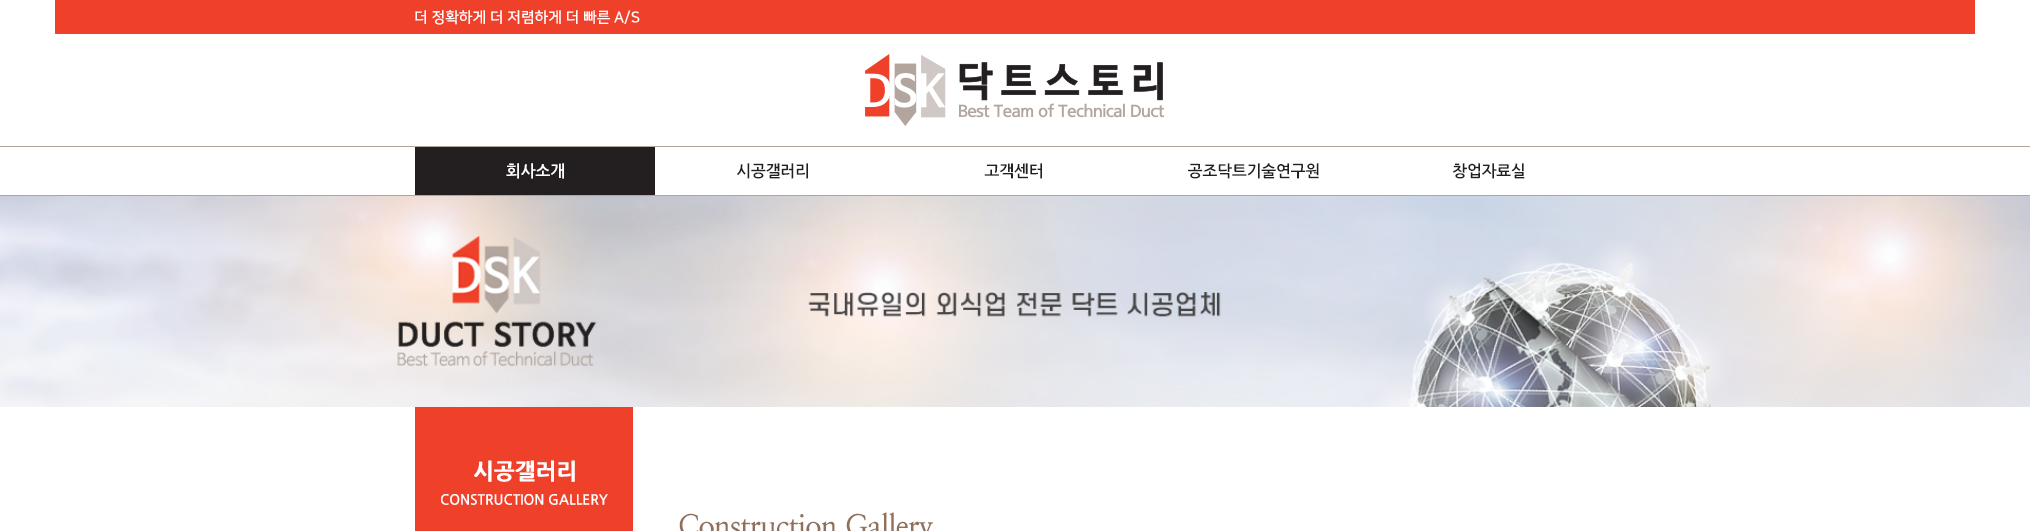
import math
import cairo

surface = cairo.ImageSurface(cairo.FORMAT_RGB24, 2030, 531)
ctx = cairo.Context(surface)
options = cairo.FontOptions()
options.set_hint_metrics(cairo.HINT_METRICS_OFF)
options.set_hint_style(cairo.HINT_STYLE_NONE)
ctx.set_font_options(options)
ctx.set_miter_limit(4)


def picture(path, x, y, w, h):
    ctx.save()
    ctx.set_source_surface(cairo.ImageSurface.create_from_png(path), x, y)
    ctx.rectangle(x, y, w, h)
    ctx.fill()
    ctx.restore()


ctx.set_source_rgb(1, 1, 1)
ctx.paint()
picture("img1.png", 55, 0, 1920, 34)
picture("img2.png", 865, 54, 299, 72)
ctx.set_source_rgb(0.698, 0.647, 0.616)
ctx.rectangle(0, 146, 2030, 1)
ctx.fill()
ctx.rectangle(0, 195, 2030, 1)
ctx.fill()
picture("img3.png", 415, 147, 240, 48)
picture("img4.png", 737, 163, 71, 16)
picture("img5.png", 984, 163, 58, 16)
picture("img6.png", 1188, 163, 131, 16)
picture("img7.png", 1453, 163, 72, 16)
picture("img8.png", 0, 196, 2030, 211)
picture("img9.png", 415, 407, 218, 124)
picture("img10.png", 679, 512, 254, 19)
surface.write_to_png("page.png")
